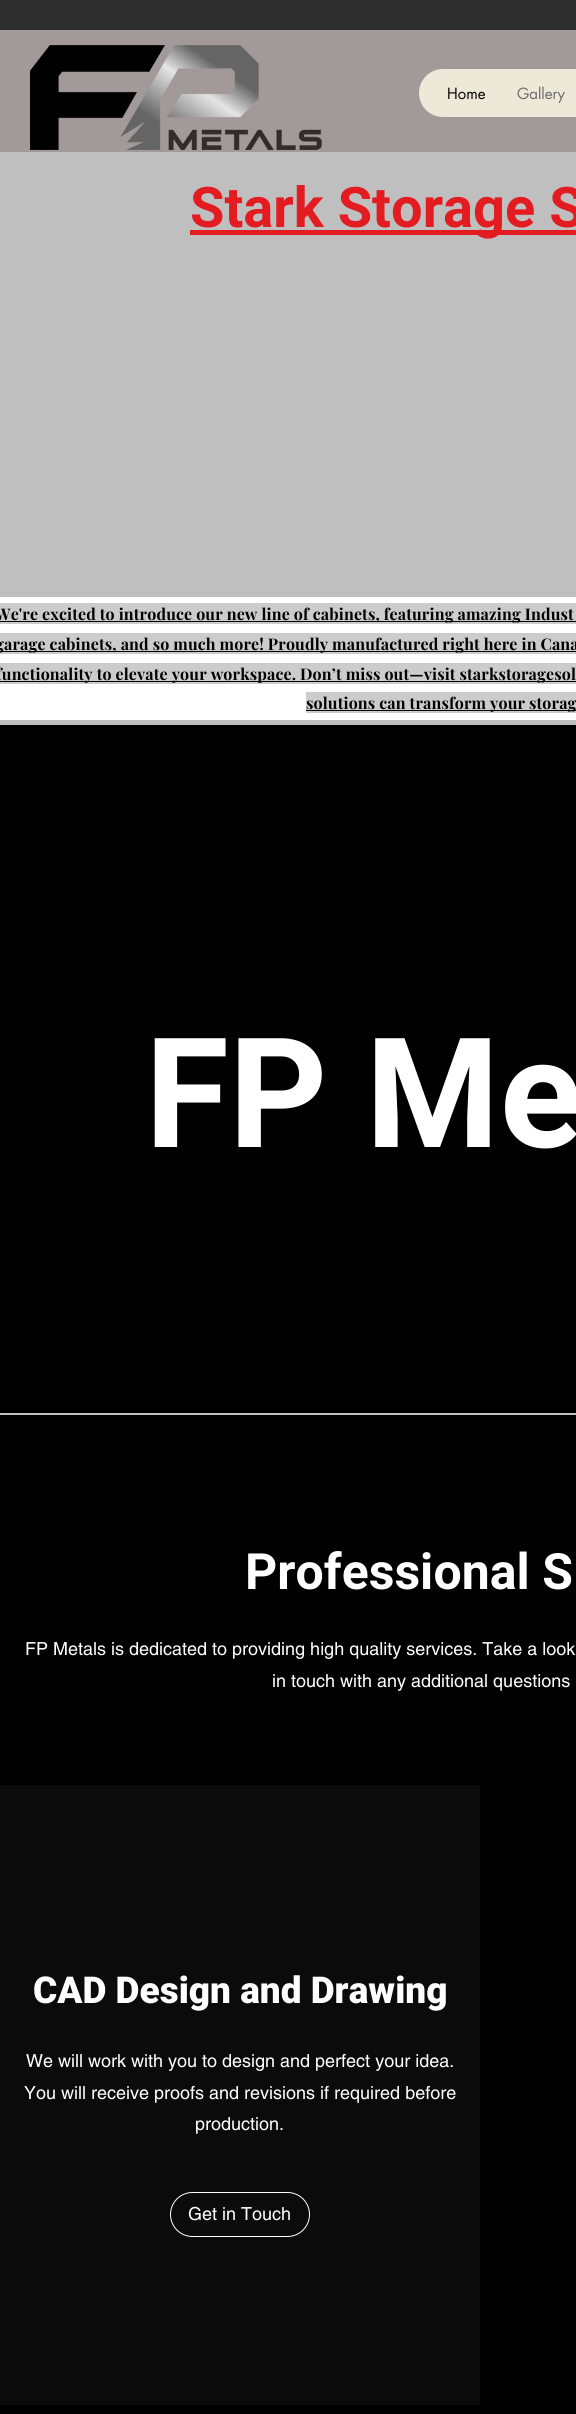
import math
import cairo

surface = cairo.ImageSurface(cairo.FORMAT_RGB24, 576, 2414)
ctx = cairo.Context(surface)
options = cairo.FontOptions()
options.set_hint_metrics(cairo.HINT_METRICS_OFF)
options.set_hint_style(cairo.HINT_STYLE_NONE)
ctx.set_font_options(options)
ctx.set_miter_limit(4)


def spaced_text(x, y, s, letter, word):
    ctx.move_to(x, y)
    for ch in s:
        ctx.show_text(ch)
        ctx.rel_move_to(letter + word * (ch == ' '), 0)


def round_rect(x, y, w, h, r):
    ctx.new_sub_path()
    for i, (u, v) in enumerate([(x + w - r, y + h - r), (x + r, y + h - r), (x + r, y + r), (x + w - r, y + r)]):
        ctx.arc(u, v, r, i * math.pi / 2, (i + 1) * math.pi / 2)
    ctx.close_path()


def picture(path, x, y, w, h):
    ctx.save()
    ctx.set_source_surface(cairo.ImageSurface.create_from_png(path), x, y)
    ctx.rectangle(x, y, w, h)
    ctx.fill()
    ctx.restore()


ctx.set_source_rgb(0.749, 0.749, 0.749)
ctx.paint()
ctx.set_source_rgb(0.184, 0.18, 0.18)
ctx.rectangle(0, 0, 576, 30)
ctx.fill()
ctx.set_source_rgb(0.635, 0.6, 0.6)
ctx.rectangle(0, 30, 576, 122)
ctx.fill()
picture("img1.png", 30, 45, 292, 105)
ctx.set_source_rgb(0.933, 0.91, 0.847)
round_rect(419, 69, 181, 48, 24)
ctx.fill()
ctx.select_font_face("futura")
ctx.set_font_size(15)
ctx.set_source_rgb(0, 0, 0)
ctx.move_to(447, 99)
ctx.show_text("Home")
ctx.set_source_rgb(0.412, 0.412, 0.412)
ctx.move_to(517, 99)
ctx.show_text("Gallery")
ctx.set_source_rgb(0.886, 0.11, 0.129)
ctx.rectangle(190, 230, 386, 5)
ctx.fill()
ctx.select_font_face("Roboto", cairo.FONT_SLANT_NORMAL, cairo.FONT_WEIGHT_BOLD)
ctx.set_font_size(56)
ctx.move_to(190, 227)
ctx.show_text("Stark Storage S")
ctx.set_source_rgb(1, 1, 1)
ctx.rectangle(0, 597, 576, 123)
ctx.fill()
ctx.set_source_rgb(0.8, 0.8, 0.8)
ctx.rectangle(0, 603, 576, 21)
ctx.fill()
ctx.set_source_rgb(0, 0, 0)
ctx.rectangle(0, 621, 576, 1)
ctx.fill()
ctx.select_font_face("Playfair Display", cairo.FONT_SLANT_NORMAL, cairo.FONT_WEIGHT_BOLD)
ctx.set_font_size(16)
spaced_text(-5, 620, "We're excited to introduce our new line of cabinets, featuring amazing Indust", 0.15, 0)
ctx.set_source_rgb(0.8, 0.8, 0.8)
ctx.rectangle(0, 633, 576, 21)
ctx.fill()
ctx.set_source_rgb(0, 0, 0)
ctx.rectangle(0, 651, 576, 1)
ctx.fill()
spaced_text(-5, 650, "garage cabinets, and so much more! Proudly manufactured right here in Cana", 0.15, 0)
ctx.set_source_rgb(0.8, 0.8, 0.8)
ctx.rectangle(0, 663, 576, 21)
ctx.fill()
ctx.set_source_rgb(0, 0, 0)
ctx.rectangle(0, 681, 576, 1)
ctx.fill()
spaced_text(-4, 680, "functionality to elevate your workspace. Don’t miss out—visit starkstoragesol", 0.15, 0)
ctx.set_source_rgb(0.8, 0.8, 0.8)
ctx.rectangle(306, 692, 270, 21)
ctx.fill()
ctx.set_source_rgb(0, 0, 0)
ctx.rectangle(306, 710, 270, 1)
ctx.fill()
spaced_text(306, 709, "solutions can transform your storag", 0.15, 0)
ctx.rectangle(0, 725, 576, 688)
ctx.fill()
ctx.select_font_face("Roboto", cairo.FONT_SLANT_NORMAL, cairo.FONT_WEIGHT_BOLD)
ctx.set_font_size(153)
ctx.set_source_rgb(1, 1, 1)
ctx.move_to(145, 1147)
ctx.show_text("FP Me")
ctx.set_source_rgb(0, 0, 0)
ctx.rectangle(0, 1415, 576, 999)
ctx.fill()
ctx.set_font_size(50)
ctx.set_source_rgb(1, 1, 1)
ctx.move_to(245, 1589)
ctx.show_text("Professional S")
ctx.select_font_face("helvetica")
ctx.set_font_size(18)
ctx.move_to(25, 1655)
ctx.show_text("FP Metals is dedicated to providing high quality services. Take a look")
ctx.move_to(272, 1687)
ctx.show_text("in touch with any additional questions")
ctx.set_source_rgb(0.047, 0.043, 0.043)
ctx.rectangle(0, 1785, 480, 620)
ctx.fill()
ctx.select_font_face("Roboto Black")
ctx.set_font_size(37)
ctx.set_source_rgb(1, 1, 1)
ctx.move_to(33, 2003)
ctx.show_text("CAD Design and Drawing")
ctx.select_font_face("helvetica")
ctx.set_font_size(18)
ctx.move_to(26, 2067)
ctx.show_text("We will work with you to design and perfect your idea.")
ctx.move_to(24, 2099)
ctx.show_text("You will receive proofs and revisions if required before")
ctx.move_to(195, 2130)
ctx.show_text("production.")
round_rect(170.5, 2192.5, 139, 44, 22)
ctx.set_line_width(1)
ctx.stroke()
ctx.move_to(188, 2220)
ctx.show_text("Get in Touch")
surface.write_to_png("page.png")
